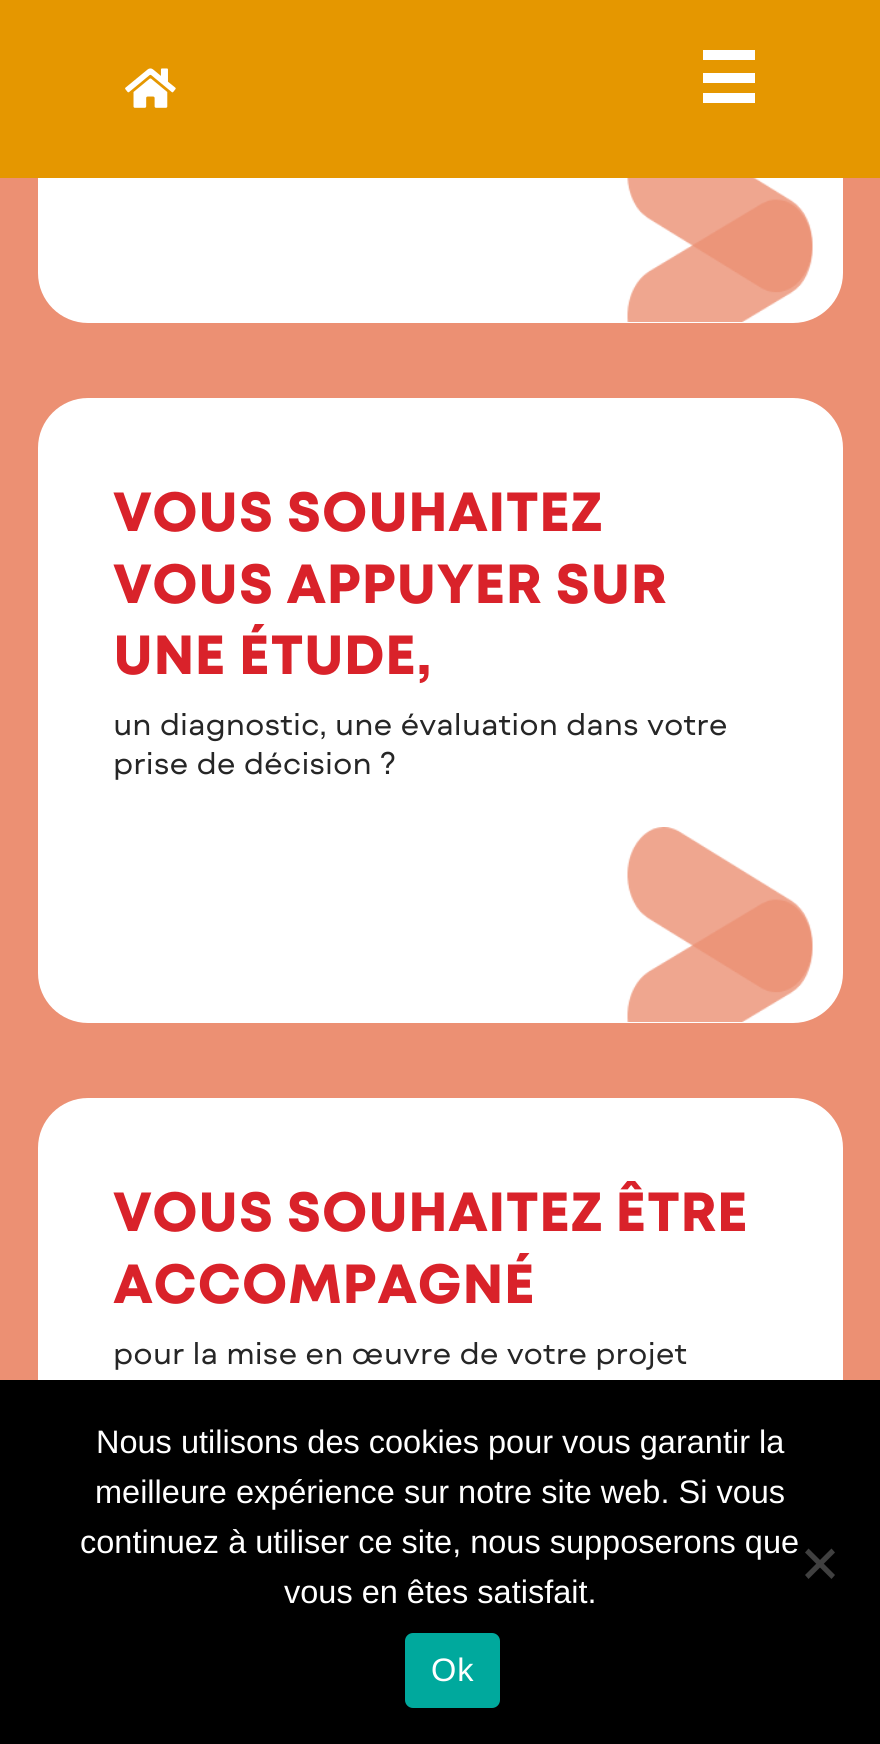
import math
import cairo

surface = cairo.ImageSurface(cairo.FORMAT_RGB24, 880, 1744)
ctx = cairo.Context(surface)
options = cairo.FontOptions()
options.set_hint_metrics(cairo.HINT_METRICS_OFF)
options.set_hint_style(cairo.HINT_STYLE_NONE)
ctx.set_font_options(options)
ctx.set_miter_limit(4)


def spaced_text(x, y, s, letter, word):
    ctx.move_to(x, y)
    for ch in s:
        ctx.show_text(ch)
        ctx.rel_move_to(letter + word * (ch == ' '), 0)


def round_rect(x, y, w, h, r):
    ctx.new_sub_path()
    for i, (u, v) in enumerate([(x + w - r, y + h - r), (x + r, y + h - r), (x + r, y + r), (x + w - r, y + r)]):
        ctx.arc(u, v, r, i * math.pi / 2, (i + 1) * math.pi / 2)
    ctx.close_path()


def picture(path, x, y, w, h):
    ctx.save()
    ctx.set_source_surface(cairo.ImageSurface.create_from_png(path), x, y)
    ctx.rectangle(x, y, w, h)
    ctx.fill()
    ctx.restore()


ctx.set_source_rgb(0.922, 0.565, 0.451)
ctx.paint()
ctx.set_source_rgb(1, 1, 1)
round_rect(38, -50, 805, 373, 50)
ctx.fill()
ctx.set_source_rgb(0.898, 0.592, 0)
ctx.rectangle(0, 0, 880, 178)
ctx.fill()
picture("img1.png", 125, 68, 51, 40)
ctx.set_source_rgb(1, 1, 1)
ctx.rectangle(703, 73, 52, 10)
ctx.fill()
ctx.rectangle(703, 50, 52, 10)
ctx.fill()
ctx.rectangle(703, 93, 52, 10)
ctx.fill()
picture("img2.png", 627, 178, 186, 144)
round_rect(38, 398, 805, 625, 50)
ctx.fill()
picture("img3.png", 627, 827, 186, 195)
ctx.select_font_face("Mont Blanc", cairo.FONT_SLANT_NORMAL, cairo.FONT_WEIGHT_BOLD)
ctx.set_font_size(55)
ctx.set_source_rgb(0.851, 0.133, 0.165)
ctx.move_to(113, 531)
ctx.show_text("VOUS SOUHAITEZ")
ctx.move_to(113, 603)
ctx.show_text("VOUS APPUYER SUR")
ctx.move_to(113, 674)
ctx.show_text("UNE ÉTUDE,")
ctx.select_font_face("Mont Blanc")
ctx.set_font_size(30)
ctx.set_source_rgb(0.149, 0.149, 0.149)
ctx.move_to(113, 735)
ctx.show_text("un diagnostic, une évaluation dans votre")
ctx.move_to(113, 774)
ctx.show_text("prise de décision ?")
ctx.set_source_rgb(1, 1, 1)
round_rect(38, 1098, 805, 625, 50)
ctx.fill()
ctx.select_font_face("Mont Blanc", cairo.FONT_SLANT_NORMAL, cairo.FONT_WEIGHT_BOLD)
ctx.set_font_size(55)
ctx.set_source_rgb(0.851, 0.133, 0.165)
ctx.move_to(113, 1231)
ctx.show_text("VOUS SOUHAITEZ ÊTRE")
ctx.move_to(113, 1303)
ctx.show_text("ACCOMPAGNÉ")
ctx.select_font_face("Mont Blanc")
ctx.set_font_size(30)
ctx.set_source_rgb(0.149, 0.149, 0.149)
ctx.move_to(113, 1364)
ctx.show_text("pour la mise en œuvre de votre projet")
ctx.set_source_rgb(0, 0, 0)
ctx.rectangle(0, 1380, 880, 364)
ctx.fill()
ctx.select_font_face("Liberation Sans")
ctx.set_font_size(32.5)
ctx.set_source_rgb(1, 1, 1)
ctx.move_to(96, 1453)
ctx.show_text("Nous utilisons des cookies pour vous garantir la")
ctx.move_to(95, 1503)
ctx.show_text("meilleure expérience sur notre site web. Si vous")
ctx.move_to(80, 1553)
ctx.show_text("continuez à utiliser ce site, nous supposerons que")
ctx.move_to(284, 1603)
ctx.show_text("vous en êtes satisfait.")
ctx.set_source_rgb(0.251, 0.251, 0.251)
ctx.new_path()
ctx.move_to(831.5, 1548.5)
ctx.line_to(835, 1552.5)
ctx.line_to(808.5, 1579)
ctx.line_to(805, 1575)
ctx.close_path()
ctx.fill()
ctx.new_path()
ctx.move_to(805, 1552.5)
ctx.line_to(808.5, 1548.5)
ctx.line_to(835, 1575)
ctx.line_to(831.5, 1579)
ctx.close_path()
ctx.fill()
ctx.set_source_rgb(0, 0.663, 0.616)
round_rect(405, 1633, 95, 75, 8)
ctx.fill()
ctx.set_source_rgb(1, 1, 1)
spaced_text(431, 1681, "Ok", 1, 0)
surface.write_to_png("page.png")
